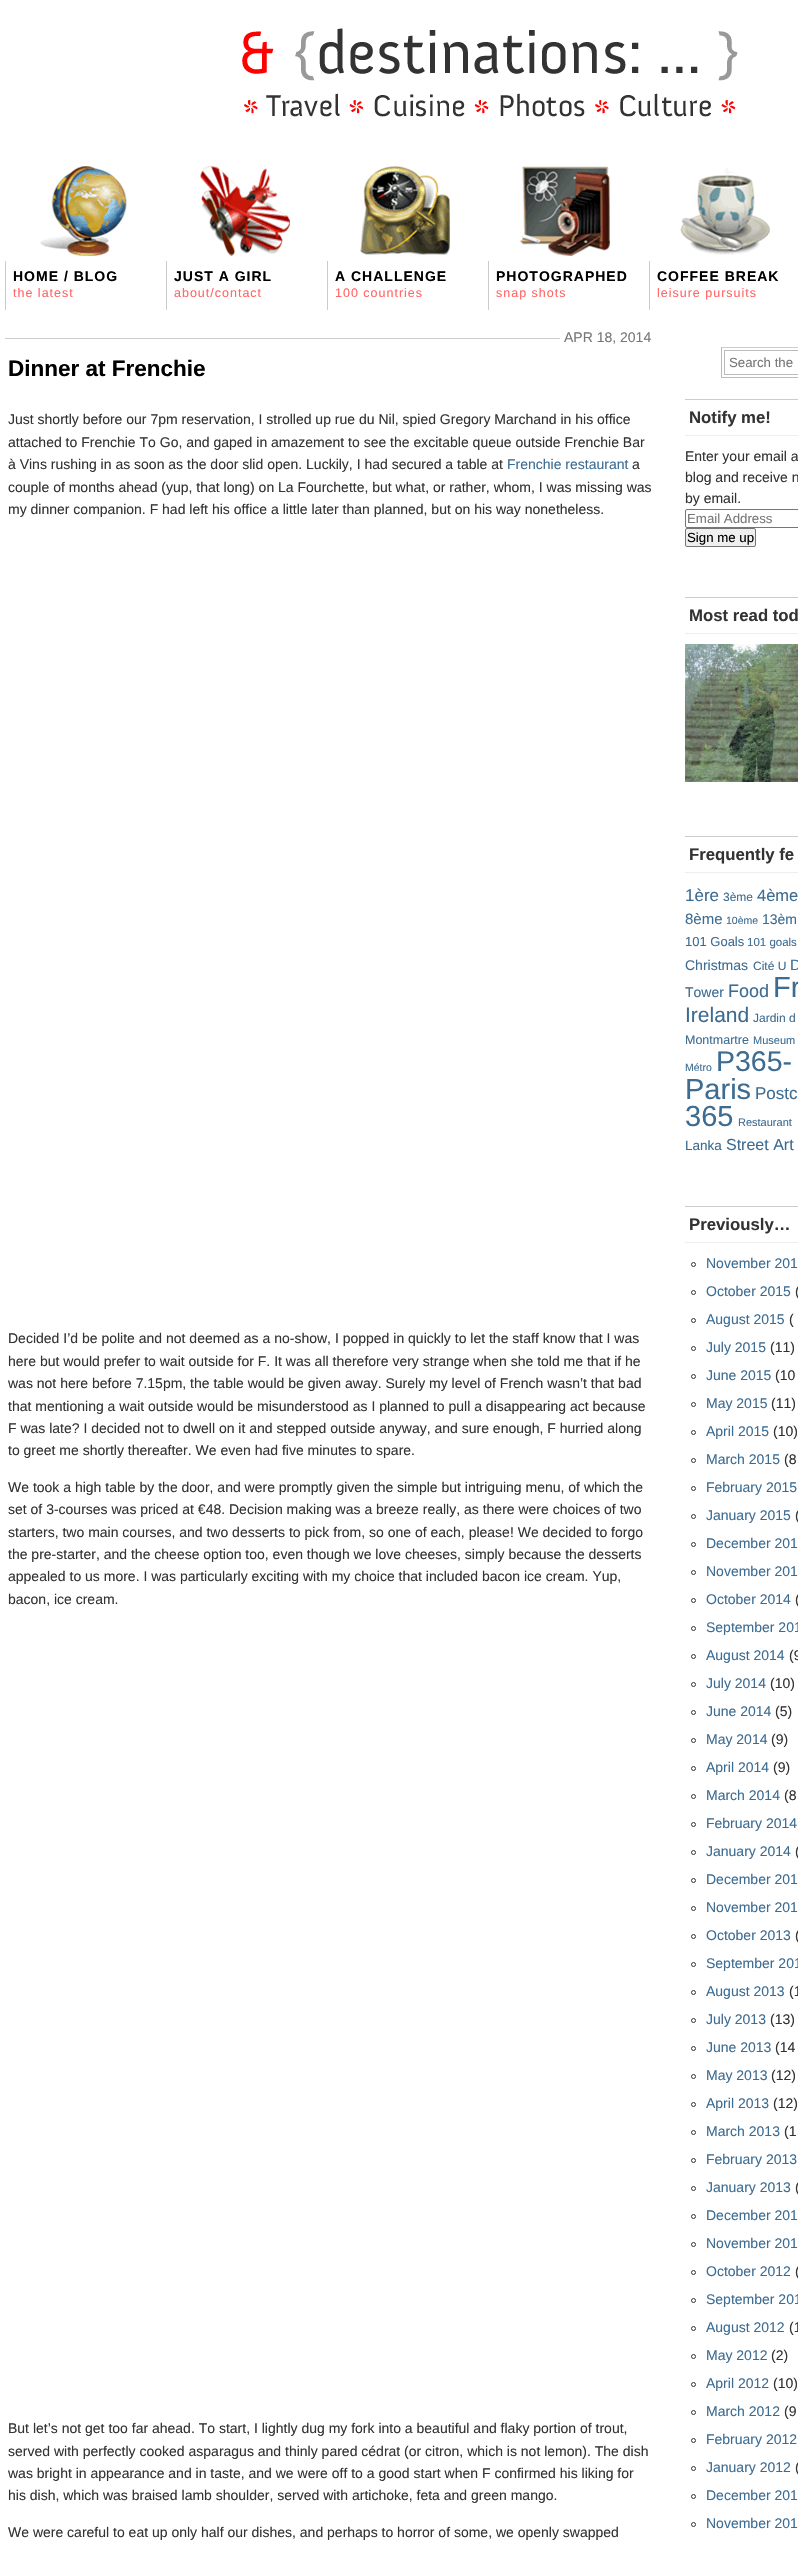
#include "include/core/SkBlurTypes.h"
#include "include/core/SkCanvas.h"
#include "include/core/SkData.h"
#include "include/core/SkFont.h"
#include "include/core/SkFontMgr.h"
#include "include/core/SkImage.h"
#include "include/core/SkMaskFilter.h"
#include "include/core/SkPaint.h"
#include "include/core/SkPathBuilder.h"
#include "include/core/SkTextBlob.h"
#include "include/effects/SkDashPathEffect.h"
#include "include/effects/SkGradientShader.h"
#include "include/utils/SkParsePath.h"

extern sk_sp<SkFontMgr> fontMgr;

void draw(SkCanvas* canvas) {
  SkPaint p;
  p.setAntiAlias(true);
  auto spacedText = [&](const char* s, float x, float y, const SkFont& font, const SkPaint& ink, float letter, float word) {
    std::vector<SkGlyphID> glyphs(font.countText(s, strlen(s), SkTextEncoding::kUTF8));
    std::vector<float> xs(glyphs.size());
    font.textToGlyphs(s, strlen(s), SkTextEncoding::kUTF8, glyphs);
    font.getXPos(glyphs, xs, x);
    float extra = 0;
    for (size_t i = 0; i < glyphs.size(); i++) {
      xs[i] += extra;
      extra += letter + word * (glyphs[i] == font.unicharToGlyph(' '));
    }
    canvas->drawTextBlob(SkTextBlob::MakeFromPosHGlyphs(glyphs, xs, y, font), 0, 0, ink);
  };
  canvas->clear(SK_ColorWHITE);
  canvas->drawImageRect(SkImages::DeferredFromEncodedData(SkData::MakeFromFileName("images/1.png")), SkRect::MakeLTRB(242, 28, 738, 117), SkSamplingOptions());
  canvas->drawImageRect(SkImages::DeferredFromEncodedData(SkData::MakeFromFileName("images/2.png")), SkRect::MakeLTRB(40, 166, 770, 256), SkSamplingOptions());
  p.setColor(SkColorSetRGB(204, 204, 204));
  canvas->drawRect(SkRect::MakeLTRB(5, 261, 6, 310), p);
  canvas->drawRect(SkRect::MakeLTRB(166, 261, 167, 310), p);
  canvas->drawRect(SkRect::MakeLTRB(327, 261, 328, 310), p);
  canvas->drawRect(SkRect::MakeLTRB(488, 261, 489, 310), p);
  canvas->drawRect(SkRect::MakeLTRB(649, 261, 650, 310), p);
  canvas->drawRect(SkRect::MakeLTRB(5, 338, 560, 339), p);
  canvas->drawRect(SkRect::MakeLTRB(721, 347, 798, 348), p);
  p.setColor(SkColorSetRGB(187, 187, 187));
  canvas->drawRect(SkRect::MakeLTRB(721, 377, 798, 378), p);
  canvas->drawRect(SkRect::MakeLTRB(721, 347, 722, 378), p);
  p.setStyle(SkPaint::kStroke_Style);
  p.setStrokeWidth(1);
  canvas->drawRect(SkRect::MakeLTRB(724.5f, 350.5f, 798.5f, 374.5f), p);
  p.setStyle(SkPaint::kFill_Style);
  p.setColor(SkColorSetRGB(204, 204, 204));
  canvas->drawRect(SkRect::MakeLTRB(685, 399, 798, 400), p);
  p.setColor(SkColorSetRGB(238, 238, 238));
  canvas->drawRect(SkRect::MakeLTRB(685, 435, 798, 436), p);
  p.setStyle(SkPaint::kStroke_Style);
  p.setColor(SkColorSetRGB(118, 118, 118));
  canvas->drawRoundRect(SkRect::MakeLTRB(685.5f, 509.5f, 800.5f, 527.5f), 1.5f, 1.5f, p);
  p.setStyle(SkPaint::kFill_Style);
  p.setColor(SkColorSetRGB(239, 239, 239));
  canvas->drawRoundRect(SkRect::MakeLTRB(685.5f, 528.5f, 755.5f, 546.5f), 1.5f, 1.5f, p);
  p.setStyle(SkPaint::kStroke_Style);
  p.setColor(SkColorSetRGB(118, 118, 118));
  canvas->drawRoundRect(SkRect::MakeLTRB(685.5f, 528.5f, 755.5f, 546.5f), 1.5f, 1.5f, p);
  p.setStyle(SkPaint::kFill_Style);
  p.setColor(SkColorSetRGB(204, 204, 204));
  canvas->drawRect(SkRect::MakeLTRB(685, 597, 798, 598), p);
  p.setColor(SkColorSetRGB(238, 238, 238));
  canvas->drawRect(SkRect::MakeLTRB(685, 633, 798, 634), p);
  canvas->drawImageRect(SkImages::DeferredFromEncodedData(SkData::MakeFromFileName("images/3.png")), SkRect::MakeLTRB(685, 644, 798, 782), SkSamplingOptions());
  p.setColor(SkColorSetRGB(204, 204, 204));
  canvas->drawRect(SkRect::MakeLTRB(685, 836, 798, 837), p);
  p.setColor(SkColorSetRGB(238, 238, 238));
  canvas->drawRect(SkRect::MakeLTRB(685, 872, 798, 873), p);
  p.setColor(SkColorSetRGB(204, 204, 204));
  canvas->drawRect(SkRect::MakeLTRB(685, 1206, 798, 1207), p);
  p.setColor(SkColorSetRGB(238, 238, 238));
  canvas->drawRect(SkRect::MakeLTRB(685, 1242, 798, 1243), p);
  p.setStyle(SkPaint::kStroke_Style);
  p.setColor(SkColorSetRGB(51, 51, 51));
  canvas->drawCircle(693.5f, 1264.5f, 2, p);
  canvas->drawCircle(693.5f, 1292.5f, 2, p);
  canvas->drawCircle(693.5f, 1320.5f, 2, p);
  canvas->drawCircle(693.5f, 1348.5f, 2, p);
  canvas->drawCircle(693.5f, 1376.5f, 2, p);
  canvas->drawCircle(693.5f, 1404.5f, 2, p);
  canvas->drawCircle(693.5f, 1432.5f, 2, p);
  canvas->drawCircle(693.5f, 1460.5f, 2, p);
  canvas->drawCircle(693.5f, 1488.5f, 2, p);
  canvas->drawCircle(693.5f, 1516.5f, 2, p);
  canvas->drawCircle(693.5f, 1544.5f, 2, p);
  canvas->drawCircle(693.5f, 1572.5f, 2, p);
  canvas->drawCircle(693.5f, 1600.5f, 2, p);
  canvas->drawCircle(693.5f, 1628.5f, 2, p);
  canvas->drawCircle(693.5f, 1656.5f, 2, p);
  canvas->drawCircle(693.5f, 1684.5f, 2, p);
  canvas->drawCircle(693.5f, 1712.5f, 2, p);
  canvas->drawCircle(693.5f, 1740.5f, 2, p);
  canvas->drawCircle(693.5f, 1768.5f, 2, p);
  canvas->drawCircle(693.5f, 1796.5f, 2, p);
  canvas->drawCircle(693.5f, 1824.5f, 2, p);
  canvas->drawCircle(693.5f, 1852.5f, 2, p);
  canvas->drawCircle(693.5f, 1880.5f, 2, p);
  canvas->drawCircle(693.5f, 1908.5f, 2, p);
  canvas->drawCircle(693.5f, 1936.5f, 2, p);
  canvas->drawCircle(693.5f, 1964.5f, 2, p);
  canvas->drawCircle(693.5f, 1992.5f, 2, p);
  canvas->drawCircle(693.5f, 2020.5f, 2, p);
  canvas->drawCircle(693.5f, 2048.5f, 2, p);
  canvas->drawCircle(693.5f, 2076.5f, 2, p);
  canvas->drawCircle(693.5f, 2104.5f, 2, p);
  canvas->drawCircle(693.5f, 2132.5f, 2, p);
  canvas->drawCircle(693.5f, 2160.5f, 2, p);
  canvas->drawCircle(693.5f, 2188.5f, 2, p);
  canvas->drawCircle(693.5f, 2216.5f, 2, p);
  canvas->drawCircle(693.5f, 2244.5f, 2, p);
  canvas->drawCircle(693.5f, 2272.5f, 2, p);
  canvas->drawCircle(693.5f, 2300.5f, 2, p);
  canvas->drawCircle(693.5f, 2328.5f, 2, p);
  canvas->drawCircle(693.5f, 2356.5f, 2, p);
  canvas->drawCircle(693.5f, 2384.5f, 2, p);
  canvas->drawCircle(693.5f, 2412.5f, 2, p);
  canvas->drawCircle(693.5f, 2440.5f, 2, p);
  canvas->drawCircle(693.5f, 2468.5f, 2, p);
  canvas->drawCircle(693.5f, 2496.5f, 2, p);
  canvas->drawCircle(693.5f, 2524.5f, 2, p);
  SkFont font1(fontMgr->matchFamilyStyle("Liberation Sans", SkFontStyle::Bold()), 14);
  font1.setSubpixel(true);
  p.setStyle(SkPaint::kFill_Style);
  p.setColor(SK_ColorBLACK);
  spacedText("HOME / BLOG", 13, 281, font1, p, 1, 0);
  SkFont font2(fontMgr->matchFamilyStyle("Liberation Sans", SkFontStyle::Normal()), 12.5f);
  font2.setSubpixel(true);
  p.setColor(SkColorSetRGB(255, 102, 102));
  spacedText("the latest", 13, 297, font2, p, 1, 0);
  p.setColor(SK_ColorBLACK);
  spacedText("JUST A GIRL", 174, 281, font1, p, 1, 0);
  p.setColor(SkColorSetRGB(255, 102, 102));
  spacedText("about/contact", 174, 297, font2, p, 1, 0);
  p.setColor(SK_ColorBLACK);
  spacedText("A CHALLENGE", 335, 281, font1, p, 1, 0);
  p.setColor(SkColorSetRGB(255, 102, 102));
  spacedText("100 countries", 335, 297, font2, p, 1, 0);
  p.setColor(SK_ColorBLACK);
  spacedText("PHOTOGRAPHED", 496, 281, font1, p, 1, 0);
  p.setColor(SkColorSetRGB(255, 102, 102));
  spacedText("snap shots", 496, 297, font2, p, 1, 0);
  p.setColor(SK_ColorBLACK);
  spacedText("COFFEE BREAK", 657, 281, font1, p, 1, 0);
  p.setColor(SkColorSetRGB(255, 102, 102));
  spacedText("leisure pursuits", 657, 297, font2, p, 1, 0);
  SkFont font3(fontMgr->matchFamilyStyle("Liberation Sans", SkFontStyle::Normal()), 14);
  font3.setSubpixel(true);
  p.setColor(SkColorSetRGB(119, 119, 119));
  canvas->drawString("APR 18, 2014", 564, 342, font3, p);
  SkFont font4(fontMgr->matchFamilyStyle("Liberation Sans", SkFontStyle::Bold()), 22.5f);
  font4.setSubpixel(true);
  p.setColor(SK_ColorBLACK);
  canvas->drawString("Dinner at Frenchie", 8, 376, font4, p);
  p.setColor(SkColorSetRGB(51, 51, 51));
  canvas->drawString("Just shortly before our 7pm reservation, I strolled up rue du Nil, spied Gregory Marchand in his office", 8, 424, font3, p);
  canvas->drawString("attached to Frenchie To Go, and gaped in amazement to see the excitable queue outside Frenchie Bar", 8, 447, font3, p);
  canvas->drawString("à Vins rushing in as soon as the door slid open. Luckily, I had secured a table at", 8, 469, font3, p);
  p.setColor(SkColorSetRGB(60, 108, 146));
  canvas->drawString("Frenchie restaurant", 507, 469, font3, p);
  p.setColor(SkColorSetRGB(51, 51, 51));
  canvas->drawString("a", 632, 469, font3, p);
  canvas->drawString("couple of months ahead (yup, that long) on La Fourchette, but what, or rather, whom, I was missing was", 8, 492, font3, p);
  canvas->drawString("my dinner companion. F had left his office a little later than planned, but on his way nonetheless.", 8, 514, font3, p);
  canvas->drawString("Decided I’d be polite and not deemed as a no-show, I popped in quickly to let the staff know that I was", 8, 1343, font3, p);
  canvas->drawString("here but would prefer to wait outside for F. It was all therefore very strange when she told me that if he", 8, 1366, font3, p);
  canvas->drawString("was not here before 7.15pm, the table would be given away. Surely my level of French wasn’t that bad", 8, 1388, font3, p);
  canvas->drawString("that mentioning a wait outside would be misunderstood as I planned to pull a disappearing act because", 8, 1411, font3, p);
  canvas->drawString("F was late? I decided not to dwell on it and stepped outside anyway, and sure enough, F hurried along", 8, 1433, font3, p);
  canvas->drawString("to greet me shortly thereafter. We even had five minutes to spare.", 8, 1455, font3, p);
  canvas->drawString("We took a high table by the door, and were promptly given the simple but intriguing menu, of which the", 8, 1492, font3, p);
  canvas->drawString("set of 3-courses was priced at €48. Decision making was a breeze really, as there were choices of two", 8, 1514, font3, p);
  canvas->drawString("starters, two main courses, and two desserts to pick from, so one of each, please! We decided to forgo", 8, 1537, font3, p);
  canvas->drawString("the pre-starter, and the cheese option too, even though we love cheeses, simply because the desserts", 8, 1559, font3, p);
  canvas->drawString("appealed to us more. I was particularly exciting with my choice that included bacon ice cream. Yup,", 8, 1581, font3, p);
  canvas->drawString("bacon, ice cream.", 8, 1604, font3, p);
  canvas->drawString("But let’s not get too far ahead. To start, I lightly dug my fork into a beautiful and flaky portion of trout,", 8, 2433, font3, p);
  canvas->drawString("served with perfectly cooked asparagus and thinly pared cédrat (or citron, which is not lemon). The dish", 8, 2456, font3, p);
  canvas->drawString("was bright in appearance and in taste, and we were off to a good start when F confirmed his liking for", 8, 2478, font3, p);
  canvas->drawString("his dish, which was braised lamb shoulder, served with artichoke, feta and green mango.", 8, 2500, font3, p);
  canvas->drawString("We were careful to eat up only half our dishes, and perhaps to horror of some, we openly swapped", 8, 2537, font3, p);
  SkFont font5(fontMgr->matchFamilyStyle("Liberation Sans", SkFontStyle::Normal()), 13.25f);
  font5.setSubpixel(true);
  p.setColor(SkColorSetRGB(119, 119, 119));
  canvas->drawString("Search the", 729, 367, font5, p);
  SkFont font6(fontMgr->matchFamilyStyle("Liberation Sans", SkFontStyle::Bold()), 16.75f);
  font6.setSubpixel(true);
  p.setColor(SkColorSetRGB(51, 51, 51));
  canvas->drawString("Notify me!", 689, 423, font6, p);
  canvas->drawString("Enter your email a", 685, 461, font3, p);
  canvas->drawString("blog and receive n", 685, 482, font3, p);
  canvas->drawString("by email.", 685, 503, font3, p);
  p.setColor(SkColorSetRGB(119, 119, 119));
  canvas->drawString("Email Address", 687, 523, font5, p);
  p.setColor(SK_ColorBLACK);
  canvas->drawString("Sign me up", 687, 542, font5, p);
  p.setColor(SkColorSetRGB(51, 51, 51));
  canvas->drawString("Most read tod", 689, 621, font6, p);
  canvas->drawString("Frequently fe", 689, 860, font6, p);
  SkFont font7(fontMgr->matchFamilyStyle("Liberation Sans", SkFontStyle::Normal()), 17);
  font7.setSubpixel(true);
  p.setColor(SkColorSetRGB(60, 108, 146));
  canvas->drawString("1ère", 685, 901, font7, p);
  SkFont font8(fontMgr->matchFamilyStyle("Liberation Sans", SkFontStyle::Normal()), 12);
  font8.setSubpixel(true);
  canvas->drawString("3ème", 723, 901, font8, p);
  SkFont font9(fontMgr->matchFamilyStyle("Liberation Sans", SkFontStyle::Normal()), 16.5f);
  font9.setSubpixel(true);
  canvas->drawString("4ème", 757, 901, font9, p);
  SkFont font10(fontMgr->matchFamilyStyle("Liberation Sans", SkFontStyle::Normal()), 15);
  font10.setSubpixel(true);
  canvas->drawString("8ème", 685, 924, font10, p);
  SkFont font11(fontMgr->matchFamilyStyle("Liberation Sans", SkFontStyle::Normal()), 10.5f);
  font11.setSubpixel(true);
  canvas->drawString("10ème", 726, 924, font11, p);
  canvas->drawString("13èm", 762, 924, font3, p);
  SkFont font12(fontMgr->matchFamilyStyle("Liberation Sans", SkFontStyle::Normal()), 13);
  font12.setSubpixel(true);
  canvas->drawString("101 Goals", 685, 946, font12, p);
  SkFont font13(fontMgr->matchFamilyStyle("Liberation Sans", SkFontStyle::Normal()), 11.5f);
  font13.setSubpixel(true);
  canvas->drawString("101 goals", 747, 946, font13, p);
  canvas->drawString("Christmas", 685, 970, font3, p);
  canvas->drawString("Cité U", 753, 970, font8, p);
  canvas->drawString("D", 790, 970, font10, p);
  canvas->drawString("Tower", 685, 997, font3, p);
  SkFont font14(fontMgr->matchFamilyStyle("Liberation Sans", SkFontStyle::Normal()), 18);
  font14.setSubpixel(true);
  canvas->drawString("Food", 728, 997, font14, p);
  SkFont font15(fontMgr->matchFamilyStyle("Liberation Sans", SkFontStyle::Normal()), 29);
  font15.setSubpixel(true);
  canvas->drawString("Fr", 773, 997, font15, p);
  SkFont font16(fontMgr->matchFamilyStyle("Liberation Sans", SkFontStyle::Normal()), 21);
  font16.setSubpixel(true);
  canvas->drawString("Ireland", 685, 1022, font16, p);
  canvas->drawString("Jardin d", 753, 1022, font8, p);
  canvas->drawString("Montmartre", 685, 1044, font2, p);
  SkFont font17(fontMgr->matchFamilyStyle("Liberation Sans", SkFontStyle::Normal()), 11);
  font17.setSubpixel(true);
  canvas->drawString("Museum", 753, 1044, font17, p);
  canvas->drawString("Métro", 685, 1071, font11, p);
  SkFont font18(fontMgr->matchFamilyStyle("Liberation Sans", SkFontStyle::Normal()), 28.5f);
  font18.setSubpixel(true);
  canvas->drawString("P365-", 716, 1071, font18, p);
  canvas->drawString("Paris", 685, 1099, font15, p);
  canvas->drawString("Postc", 755, 1099, font7, p);
  canvas->drawString("365", 685, 1126, font15, p);
  canvas->drawString("Restaurant", 738, 1126, font17, p);
  SkFont font19(fontMgr->matchFamilyStyle("Liberation Sans", SkFontStyle::Normal()), 13.5f);
  font19.setSubpixel(true);
  canvas->drawString("Lanka", 685, 1150, font19, p);
  SkFont font20(fontMgr->matchFamilyStyle("Liberation Sans", SkFontStyle::Normal()), 16);
  font20.setSubpixel(true);
  canvas->drawString("Street Art", 726, 1150, font20, p);
  p.setColor(SkColorSetRGB(51, 51, 51));
  canvas->drawString("Previously…", 689, 1230, font6, p);
  p.setColor(SkColorSetRGB(60, 108, 146));
  canvas->drawString("November 201", 706, 1268, font3, p);
  canvas->drawString("October 2015", 706, 1296, font3, p);
  p.setColor(SkColorSetRGB(51, 51, 51));
  canvas->drawString("(", 795, 1296, font3, p);
  p.setColor(SkColorSetRGB(60, 108, 146));
  canvas->drawString("August 2015", 706, 1324, font3, p);
  p.setColor(SkColorSetRGB(51, 51, 51));
  canvas->drawString("(", 789, 1324, font3, p);
  p.setColor(SkColorSetRGB(60, 108, 146));
  canvas->drawString("July 2015", 706, 1352, font3, p);
  p.setColor(SkColorSetRGB(51, 51, 51));
  canvas->drawString("(11)", 770, 1352, font3, p);
  p.setColor(SkColorSetRGB(60, 108, 146));
  canvas->drawString("June 2015", 706, 1380, font3, p);
  p.setColor(SkColorSetRGB(51, 51, 51));
  canvas->drawString("(10", 775, 1380, font3, p);
  p.setColor(SkColorSetRGB(60, 108, 146));
  canvas->drawString("May 2015", 706, 1408, font3, p);
  p.setColor(SkColorSetRGB(51, 51, 51));
  canvas->drawString("(11)", 771, 1408, font3, p);
  p.setColor(SkColorSetRGB(60, 108, 146));
  canvas->drawString("April 2015", 706, 1436, font3, p);
  p.setColor(SkColorSetRGB(51, 51, 51));
  canvas->drawString("(10)", 773, 1436, font3, p);
  p.setColor(SkColorSetRGB(60, 108, 146));
  canvas->drawString("March 2015", 706, 1464, font3, p);
  p.setColor(SkColorSetRGB(51, 51, 51));
  canvas->drawString("(8", 784, 1464, font3, p);
  p.setColor(SkColorSetRGB(60, 108, 146));
  canvas->drawString("February 2015", 706, 1492, font3, p);
  canvas->drawString("January 2015", 706, 1520, font3, p);
  p.setColor(SkColorSetRGB(51, 51, 51));
  canvas->drawString("(", 795, 1520, font3, p);
  p.setColor(SkColorSetRGB(60, 108, 146));
  canvas->drawString("December 201", 706, 1548, font3, p);
  canvas->drawString("November 201", 706, 1576, font3, p);
  canvas->drawString("October 2014", 706, 1604, font3, p);
  p.setColor(SkColorSetRGB(51, 51, 51));
  canvas->drawString("(", 795, 1604, font3, p);
  p.setColor(SkColorSetRGB(60, 108, 146));
  canvas->drawString("September 201", 706, 1632, font3, p);
  canvas->drawString("August 2014", 706, 1660, font3, p);
  p.setColor(SkColorSetRGB(51, 51, 51));
  canvas->drawString("(9", 789, 1660, font3, p);
  p.setColor(SkColorSetRGB(60, 108, 146));
  canvas->drawString("July 2014", 706, 1688, font3, p);
  p.setColor(SkColorSetRGB(51, 51, 51));
  canvas->drawString("(10)", 770, 1688, font3, p);
  p.setColor(SkColorSetRGB(60, 108, 146));
  canvas->drawString("June 2014", 706, 1716, font3, p);
  p.setColor(SkColorSetRGB(51, 51, 51));
  canvas->drawString("(5)", 775, 1716, font3, p);
  p.setColor(SkColorSetRGB(60, 108, 146));
  canvas->drawString("May 2014", 706, 1744, font3, p);
  p.setColor(SkColorSetRGB(51, 51, 51));
  canvas->drawString("(9)", 771, 1744, font3, p);
  p.setColor(SkColorSetRGB(60, 108, 146));
  canvas->drawString("April 2014", 706, 1772, font3, p);
  p.setColor(SkColorSetRGB(51, 51, 51));
  canvas->drawString("(9)", 773, 1772, font3, p);
  p.setColor(SkColorSetRGB(60, 108, 146));
  canvas->drawString("March 2014", 706, 1800, font3, p);
  p.setColor(SkColorSetRGB(51, 51, 51));
  canvas->drawString("(8", 784, 1800, font3, p);
  p.setColor(SkColorSetRGB(60, 108, 146));
  canvas->drawString("February 2014", 706, 1828, font3, p);
  canvas->drawString("January 2014", 706, 1856, font3, p);
  p.setColor(SkColorSetRGB(51, 51, 51));
  canvas->drawString("(", 795, 1856, font3, p);
  p.setColor(SkColorSetRGB(60, 108, 146));
  canvas->drawString("December 201", 706, 1884, font3, p);
  canvas->drawString("November 201", 706, 1912, font3, p);
  canvas->drawString("October 2013", 706, 1940, font3, p);
  p.setColor(SkColorSetRGB(51, 51, 51));
  canvas->drawString("(", 795, 1940, font3, p);
  p.setColor(SkColorSetRGB(60, 108, 146));
  canvas->drawString("September 201", 706, 1968, font3, p);
  canvas->drawString("August 2013", 706, 1996, font3, p);
  p.setColor(SkColorSetRGB(51, 51, 51));
  canvas->drawString("(1", 789, 1996, font3, p);
  p.setColor(SkColorSetRGB(60, 108, 146));
  canvas->drawString("July 2013", 706, 2024, font3, p);
  p.setColor(SkColorSetRGB(51, 51, 51));
  canvas->drawString("(13)", 770, 2024, font3, p);
  p.setColor(SkColorSetRGB(60, 108, 146));
  canvas->drawString("June 2013", 706, 2052, font3, p);
  p.setColor(SkColorSetRGB(51, 51, 51));
  canvas->drawString("(14", 775, 2052, font3, p);
  p.setColor(SkColorSetRGB(60, 108, 146));
  canvas->drawString("May 2013", 706, 2080, font3, p);
  p.setColor(SkColorSetRGB(51, 51, 51));
  canvas->drawString("(12)", 771, 2080, font3, p);
  p.setColor(SkColorSetRGB(60, 108, 146));
  canvas->drawString("April 2013", 706, 2108, font3, p);
  p.setColor(SkColorSetRGB(51, 51, 51));
  canvas->drawString("(12)", 773, 2108, font3, p);
  p.setColor(SkColorSetRGB(60, 108, 146));
  canvas->drawString("March 2013", 706, 2136, font3, p);
  p.setColor(SkColorSetRGB(51, 51, 51));
  canvas->drawString("(1", 784, 2136, font3, p);
  p.setColor(SkColorSetRGB(60, 108, 146));
  canvas->drawString("February 2013", 706, 2164, font3, p);
  canvas->drawString("January 2013", 706, 2192, font3, p);
  p.setColor(SkColorSetRGB(51, 51, 51));
  canvas->drawString("(", 795, 2192, font3, p);
  p.setColor(SkColorSetRGB(60, 108, 146));
  canvas->drawString("December 201", 706, 2220, font3, p);
  canvas->drawString("November 201", 706, 2248, font3, p);
  canvas->drawString("October 2012", 706, 2276, font3, p);
  p.setColor(SkColorSetRGB(51, 51, 51));
  canvas->drawString("(", 795, 2276, font3, p);
  p.setColor(SkColorSetRGB(60, 108, 146));
  canvas->drawString("September 201", 706, 2304, font3, p);
  canvas->drawString("August 2012", 706, 2332, font3, p);
  p.setColor(SkColorSetRGB(51, 51, 51));
  canvas->drawString("(1", 789, 2332, font3, p);
  p.setColor(SkColorSetRGB(60, 108, 146));
  canvas->drawString("May 2012", 706, 2360, font3, p);
  p.setColor(SkColorSetRGB(51, 51, 51));
  canvas->drawString("(2)", 771, 2360, font3, p);
  p.setColor(SkColorSetRGB(60, 108, 146));
  canvas->drawString("April 2012", 706, 2388, font3, p);
  p.setColor(SkColorSetRGB(51, 51, 51));
  canvas->drawString("(10)", 773, 2388, font3, p);
  p.setColor(SkColorSetRGB(60, 108, 146));
  canvas->drawString("March 2012", 706, 2416, font3, p);
  p.setColor(SkColorSetRGB(51, 51, 51));
  canvas->drawString("(9", 784, 2416, font3, p);
  p.setColor(SkColorSetRGB(60, 108, 146));
  canvas->drawString("February 2012", 706, 2444, font3, p);
  canvas->drawString("January 2012", 706, 2472, font3, p);
  p.setColor(SkColorSetRGB(51, 51, 51));
  canvas->drawString("(", 795, 2472, font3, p);
  p.setColor(SkColorSetRGB(60, 108, 146));
  canvas->drawString("December 201", 706, 2500, font3, p);
  canvas->drawString("November 201", 706, 2528, font3, p);
}
